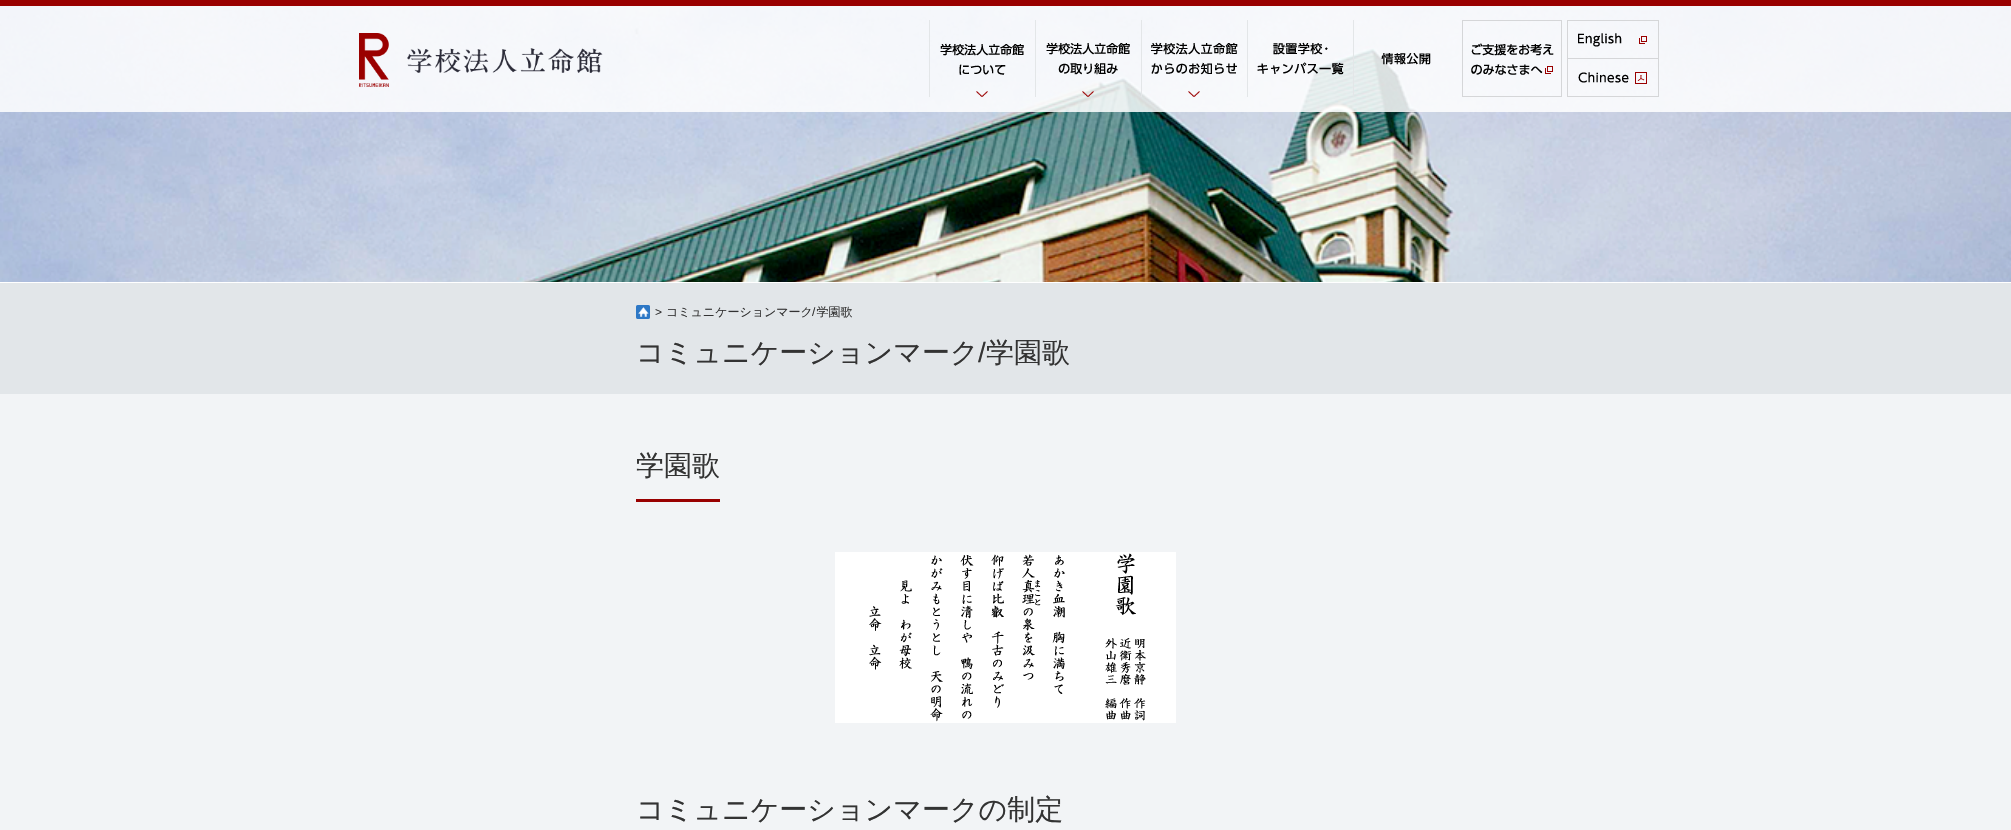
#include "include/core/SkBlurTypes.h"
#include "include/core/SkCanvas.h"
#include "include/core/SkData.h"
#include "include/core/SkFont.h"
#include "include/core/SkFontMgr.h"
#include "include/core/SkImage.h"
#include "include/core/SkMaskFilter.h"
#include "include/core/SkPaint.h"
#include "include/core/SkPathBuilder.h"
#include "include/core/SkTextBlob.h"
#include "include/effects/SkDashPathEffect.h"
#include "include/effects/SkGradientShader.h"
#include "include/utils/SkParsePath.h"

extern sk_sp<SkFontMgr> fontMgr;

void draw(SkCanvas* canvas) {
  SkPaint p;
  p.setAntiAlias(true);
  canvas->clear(SkColorSetRGB(242, 244, 246));
  p.setColor(SkColorSetRGB(153, 0, 0));
  canvas->drawRect(SkRect::MakeLTRB(0, 0, 2011, 6), p);
  canvas->drawImageRect(SkImages::DeferredFromEncodedData(SkData::MakeFromFileName("images/16.png")), SkRect::MakeLTRB(0, 6, 2011, 282), SkSamplingOptions());
  p.setColor(SkColorSetARGB(217, 255, 255, 255));
  canvas->drawRect(SkRect::MakeLTRB(0, 6, 2011, 112), p);
  canvas->drawImageRect(SkImages::DeferredFromEncodedData(SkData::MakeFromFileName("images/1.png")), SkRect::MakeLTRB(359, 33, 603, 87), SkSamplingOptions());
  p.setColor(SkColorSetRGB(227, 230, 232));
  canvas->drawRect(SkRect::MakeLTRB(929, 20, 930, 97), p);
  canvas->drawImageRect(SkImages::DeferredFromEncodedData(SkData::MakeFromFileName("images/2.png")), SkRect::MakeLTRB(940, 43, 1024, 75), SkSamplingOptions());
  canvas->drawImageRect(SkImages::DeferredFromEncodedData(SkData::MakeFromFileName("images/3.png")), SkRect::MakeLTRB(976, 91, 988, 97), SkSamplingOptions());
  canvas->drawRect(SkRect::MakeLTRB(1035, 20, 1036, 97), p);
  canvas->drawImageRect(SkImages::DeferredFromEncodedData(SkData::MakeFromFileName("images/4.png")), SkRect::MakeLTRB(1046, 42, 1130, 75), SkSamplingOptions());
  canvas->drawImageRect(SkImages::DeferredFromEncodedData(SkData::MakeFromFileName("images/5.png")), SkRect::MakeLTRB(1082, 91, 1094, 97), SkSamplingOptions());
  canvas->drawRect(SkRect::MakeLTRB(1141, 20, 1142, 97), p);
  canvas->drawImageRect(SkImages::DeferredFromEncodedData(SkData::MakeFromFileName("images/6.png")), SkRect::MakeLTRB(1151, 42, 1238, 75), SkSamplingOptions());
  canvas->drawImageRect(SkImages::DeferredFromEncodedData(SkData::MakeFromFileName("images/7.png")), SkRect::MakeLTRB(1188, 91, 1200, 97), SkSamplingOptions());
  canvas->drawRect(SkRect::MakeLTRB(1247, 20, 1248, 97), p);
  canvas->drawImageRect(SkImages::DeferredFromEncodedData(SkData::MakeFromFileName("images/8.png")), SkRect::MakeLTRB(1257, 42, 1344, 75), SkSamplingOptions());
  canvas->drawRect(SkRect::MakeLTRB(1353, 20, 1354, 97), p);
  canvas->drawImageRect(SkImages::DeferredFromEncodedData(SkData::MakeFromFileName("images/9.png")), SkRect::MakeLTRB(1381, 53, 1431, 65), SkSamplingOptions());
  p.setStyle(SkPaint::kStroke_Style);
  p.setStrokeWidth(1);
  p.setColor(SkColorSetRGB(213, 214, 216));
  canvas->drawRect(SkRect::MakeLTRB(1462.5f, 20.5f, 1561.5f, 96.5f), p);
  canvas->drawImageRect(SkImages::DeferredFromEncodedData(SkData::MakeFromFileName("images/10.png")), SkRect::MakeLTRB(1471, 43, 1554, 75), SkSamplingOptions());
  canvas->drawImageRect(SkImages::DeferredFromEncodedData(SkData::MakeFromFileName("images/11.png")), SkRect::MakeLTRB(1545, 66, 1553, 74), SkSamplingOptions());
  canvas->drawRect(SkRect::MakeLTRB(1567.5f, 20.5f, 1658.5f, 58.5f), p);
  canvas->drawImageRect(SkImages::DeferredFromEncodedData(SkData::MakeFromFileName("images/12.png")), SkRect::MakeLTRB(1578, 33, 1622, 47), SkSamplingOptions());
  canvas->drawImageRect(SkImages::DeferredFromEncodedData(SkData::MakeFromFileName("images/13.png")), SkRect::MakeLTRB(1639, 36, 1647, 44), SkSamplingOptions());
  canvas->drawRect(SkRect::MakeLTRB(1567.5f, 58.5f, 1658.5f, 96.5f), p);
  canvas->drawImageRect(SkImages::DeferredFromEncodedData(SkData::MakeFromFileName("images/14.png")), SkRect::MakeLTRB(1578, 72, 1629, 83), SkSamplingOptions());
  canvas->drawImageRect(SkImages::DeferredFromEncodedData(SkData::MakeFromFileName("images/15.png")), SkRect::MakeLTRB(1635, 72, 1647, 84), SkSamplingOptions());
  p.setStyle(SkPaint::kFill_Style);
  p.setColor(SK_ColorWHITE);
  canvas->drawRect(SkRect::MakeLTRB(0, 282, 2011, 283), p);
  p.setColor(SkColorSetRGB(226, 230, 233));
  canvas->drawRect(SkRect::MakeLTRB(0, 283, 2011, 394), p);
  canvas->drawImageRect(SkImages::DeferredFromEncodedData(SkData::MakeFromFileName("images/17.png")), SkRect::MakeLTRB(636, 305, 650, 319), SkSamplingOptions());
  p.setColor(SkColorSetRGB(153, 0, 0));
  canvas->drawRect(SkRect::MakeLTRB(636, 499, 720, 502), p);
  canvas->drawImageRect(SkImages::DeferredFromEncodedData(SkData::MakeFromFileName("images/18.png")), SkRect::MakeLTRB(835, 552, 1176, 723), SkSamplingOptions());
  SkFont font1(fontMgr->matchFamilyStyle("WenQuanYi Zen Hei", SkFontStyle(500, SkFontStyle::kNormal_Width, SkFontStyle::kUpright_Slant)), 12);
  font1.setSubpixel(true);
  p.setColor(SkColorSetRGB(51, 51, 51));
  canvas->drawString("コミュニケーションマーク 学園歌", 666, 316, font1, p);
  SkFont font2(fontMgr->matchFamilyStyle("Liberation Sans", SkFontStyle::Normal()), 12);
  font2.setSubpixel(true);
  canvas->drawString(">", 655, 316, font2, p);
  canvas->drawString("/", 812, 316, font2, p);
  SkFont font3(fontMgr->matchFamilyStyle("WenQuanYi Zen Hei", SkFontStyle(500, SkFontStyle::kNormal_Width, SkFontStyle::kUpright_Slant)), 28);
  font3.setSubpixel(true);
  canvas->drawString("コミュニケーションマーク", 636, 362, font3, p);
  SkFont font4(fontMgr->matchFamilyStyle("Liberation Sans", SkFontStyle::Normal()), 28);
  font4.setSubpixel(true);
  canvas->drawString("/", 978, 362, font4, p);
  canvas->drawString("学園歌", 986, 362, font3, p);
  canvas->drawString("学園歌", 636, 475, font3, p);
  canvas->drawString("コミュニケーションマークの制定", 636, 819, font3, p);
}
